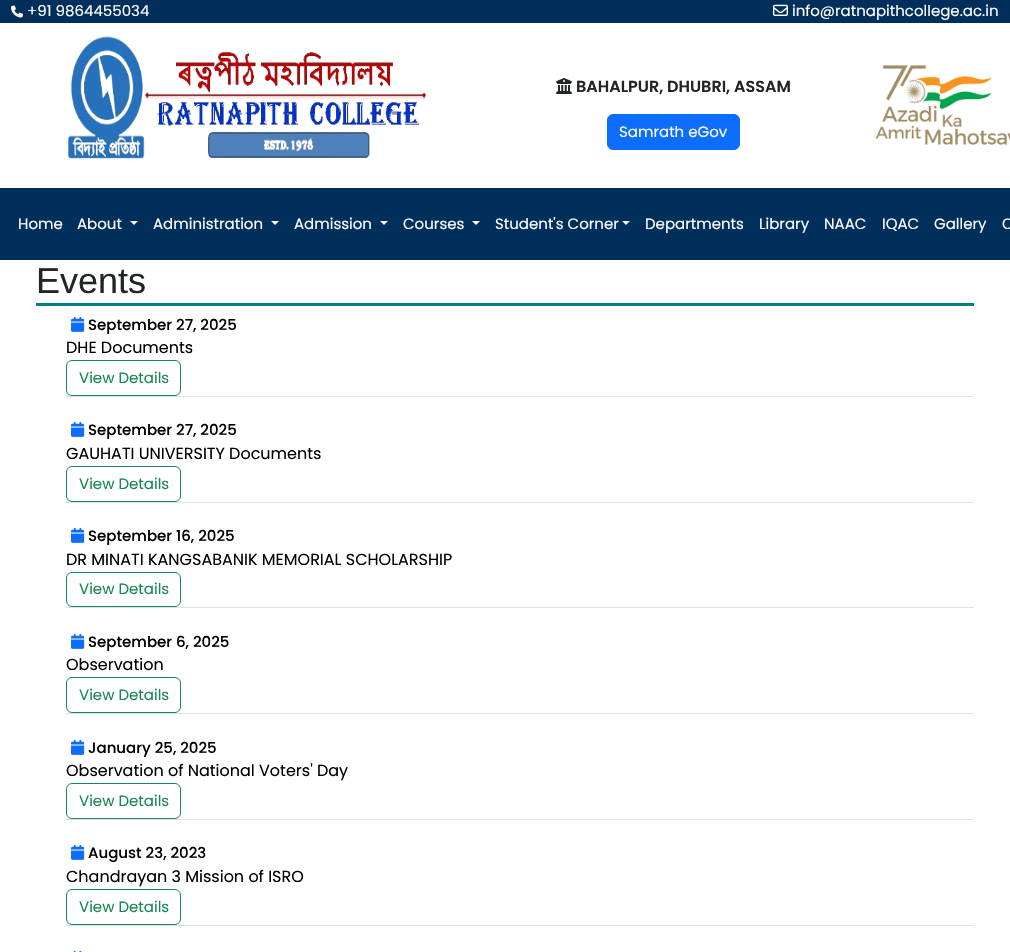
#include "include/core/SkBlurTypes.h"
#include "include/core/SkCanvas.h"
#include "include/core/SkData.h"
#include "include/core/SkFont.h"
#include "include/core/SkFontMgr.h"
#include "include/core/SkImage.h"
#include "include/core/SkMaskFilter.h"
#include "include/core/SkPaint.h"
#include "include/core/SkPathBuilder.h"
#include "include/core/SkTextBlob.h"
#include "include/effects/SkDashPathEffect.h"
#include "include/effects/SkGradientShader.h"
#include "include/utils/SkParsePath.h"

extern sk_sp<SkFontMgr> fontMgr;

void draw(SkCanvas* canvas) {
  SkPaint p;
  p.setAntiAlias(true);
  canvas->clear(SK_ColorWHITE);
  p.setColor(SkColorSetRGB(0, 47, 92));
  canvas->drawRect(SkRect::MakeLTRB(0, 0, 1010, 23), p);
  canvas->drawImageRect(SkImages::DeferredFromEncodedData(SkData::MakeFromFileName("images/1.png")), SkRect::MakeLTRB(11, 5, 23, 18), SkSamplingOptions());
  canvas->drawImageRect(SkImages::DeferredFromEncodedData(SkData::MakeFromFileName("images/2.png")), SkRect::MakeLTRB(773, 4, 788, 16), SkSamplingOptions());
  canvas->drawImageRect(SkImages::DeferredFromEncodedData(SkData::MakeFromFileName("images/3.png")), SkRect::MakeLTRB(67, 36, 426, 159), SkSamplingOptions());
  canvas->drawImageRect(SkImages::DeferredFromEncodedData(SkData::MakeFromFileName("images/4.png")), SkRect::MakeLTRB(556, 78, 572, 94), SkSamplingOptions());
  p.setColor(SkColorSetRGB(13, 110, 253));
  canvas->drawRoundRect(SkRect::MakeLTRB(607.5f, 114.5f, 739.5f, 149.5f), 5.5f, 5.5f, p);
  p.setStyle(SkPaint::kStroke_Style);
  p.setStrokeWidth(1);
  canvas->drawRoundRect(SkRect::MakeLTRB(607.5f, 114.5f, 739.5f, 149.5f), 5.5f, 5.5f, p);
  canvas->drawImageRect(SkImages::DeferredFromEncodedData(SkData::MakeFromFileName("images/5.png")), SkRect::MakeLTRB(875, 65, 1010, 145), SkSamplingOptions());
  p.setStyle(SkPaint::kFill_Style);
  p.setColor(SkColorSetRGB(0, 47, 92));
  canvas->drawRect(SkRect::MakeLTRB(0, 188, 1010, 260), p);
  p.setColor(SK_ColorWHITE);
  canvas->drawPath(SkPathBuilder().moveTo(130, 221).lineTo(138, 221).lineTo(134, 225).close().detach(), p);
  canvas->drawPath(SkPathBuilder().moveTo(271, 221).lineTo(279, 221).lineTo(275, 225).close().detach(), p);
  canvas->drawPath(SkPathBuilder().moveTo(380, 221).lineTo(388, 221).lineTo(384, 225).close().detach(), p);
  canvas->drawPath(SkPathBuilder().moveTo(472, 221).lineTo(480, 221).lineTo(476, 225).close().detach(), p);
  canvas->drawPath(SkPathBuilder().moveTo(622, 221).lineTo(630, 221).lineTo(626, 225).close().detach(), p);
  p.setColor(SkColorSetRGB(0, 128, 128));
  canvas->drawRect(SkRect::MakeLTRB(36, 303, 974, 306), p);
  canvas->drawImageRect(SkImages::DeferredFromEncodedData(SkData::MakeFromFileName("images/6.png")), SkRect::MakeLTRB(71, 316, 85, 332), SkSamplingOptions());
  p.setColor(SkColorSetRGB(222, 226, 230));
  canvas->drawRect(SkRect::MakeLTRB(66, 396, 974, 397), p);
  p.setStyle(SkPaint::kStroke_Style);
  p.setColor(SkColorSetRGB(25, 135, 84));
  canvas->drawRoundRect(SkRect::MakeLTRB(66.5f, 360.5f, 180.5f, 395.5f), 5.5f, 5.5f, p);
  canvas->drawImageRect(SkImages::DeferredFromEncodedData(SkData::MakeFromFileName("images/6.png")), SkRect::MakeLTRB(71, 421, 85, 437), SkSamplingOptions());
  p.setStyle(SkPaint::kFill_Style);
  p.setColor(SkColorSetRGB(222, 226, 230));
  canvas->drawRect(SkRect::MakeLTRB(66, 502, 974, 503), p);
  p.setStyle(SkPaint::kStroke_Style);
  p.setColor(SkColorSetRGB(25, 135, 84));
  canvas->drawRoundRect(SkRect::MakeLTRB(66.5f, 466.5f, 180.5f, 501.5f), 5.5f, 5.5f, p);
  canvas->drawImageRect(SkImages::DeferredFromEncodedData(SkData::MakeFromFileName("images/6.png")), SkRect::MakeLTRB(71, 527, 85, 543), SkSamplingOptions());
  p.setStyle(SkPaint::kFill_Style);
  p.setColor(SkColorSetRGB(222, 226, 230));
  canvas->drawRect(SkRect::MakeLTRB(66, 607, 974, 608), p);
  p.setStyle(SkPaint::kStroke_Style);
  p.setColor(SkColorSetRGB(25, 135, 84));
  canvas->drawRoundRect(SkRect::MakeLTRB(66.5f, 572.5f, 180.5f, 606.5f), 5.5f, 5.5f, p);
  canvas->drawImageRect(SkImages::DeferredFromEncodedData(SkData::MakeFromFileName("images/6.png")), SkRect::MakeLTRB(71, 633, 85, 649), SkSamplingOptions());
  p.setStyle(SkPaint::kFill_Style);
  p.setColor(SkColorSetRGB(222, 226, 230));
  canvas->drawRect(SkRect::MakeLTRB(66, 713, 974, 714), p);
  p.setStyle(SkPaint::kStroke_Style);
  p.setColor(SkColorSetRGB(25, 135, 84));
  canvas->drawRoundRect(SkRect::MakeLTRB(66.5f, 677.5f, 180.5f, 712.5f), 5.5f, 5.5f, p);
  canvas->drawImageRect(SkImages::DeferredFromEncodedData(SkData::MakeFromFileName("images/6.png")), SkRect::MakeLTRB(71, 739, 85, 755), SkSamplingOptions());
  p.setStyle(SkPaint::kFill_Style);
  p.setColor(SkColorSetRGB(222, 226, 230));
  canvas->drawRect(SkRect::MakeLTRB(66, 819, 974, 820), p);
  p.setStyle(SkPaint::kStroke_Style);
  p.setColor(SkColorSetRGB(25, 135, 84));
  canvas->drawRoundRect(SkRect::MakeLTRB(66.5f, 783.5f, 180.5f, 818.5f), 5.5f, 5.5f, p);
  canvas->drawImageRect(SkImages::DeferredFromEncodedData(SkData::MakeFromFileName("images/6.png")), SkRect::MakeLTRB(71, 844, 85, 860), SkSamplingOptions());
  p.setStyle(SkPaint::kFill_Style);
  p.setColor(SkColorSetRGB(222, 226, 230));
  canvas->drawRect(SkRect::MakeLTRB(66, 925, 974, 926), p);
  p.setStyle(SkPaint::kStroke_Style);
  p.setColor(SkColorSetRGB(25, 135, 84));
  canvas->drawRoundRect(SkRect::MakeLTRB(66.5f, 889.5f, 180.5f, 924.5f), 5.5f, 5.5f, p);
  canvas->drawImageRect(SkImages::DeferredFromEncodedData(SkData::MakeFromFileName("images/7.png")), SkRect::MakeLTRB(73, 950, 82, 952), SkSamplingOptions());
  SkFont font1(fontMgr->matchFamilyStyle("Poppins", SkFontStyle::Normal()), 15);
  font1.setSubpixel(true);
  p.setStyle(SkPaint::kFill_Style);
  p.setColor(SK_ColorWHITE);
  canvas->drawString("+91 9864455034", 27, 16, font1, p);
  canvas->drawString("info@ratnapithcollege.ac.in", 792, 16, font1, p);
  SkFont font2(fontMgr->matchFamilyStyle("Poppins", SkFontStyle(600, SkFontStyle::kNormal_Width, SkFontStyle::kUpright_Slant)), 16);
  font2.setSubpixel(true);
  p.setColor(SkColorSetRGB(33, 37, 41));
  canvas->drawString("BAHALPUR, DHUBRI, ASSAM", 576, 92, font2, p);
  p.setColor(SK_ColorWHITE);
  canvas->drawString("Samrath eGov", 619, 137, font1, p);
  canvas->drawString("Home", 18, 229, font1, p);
  canvas->drawString("About", 77, 229, font1, p);
  canvas->drawString("Administration", 153, 229, font1, p);
  canvas->drawString("Admission", 294, 229, font1, p);
  canvas->drawString("Courses", 403, 229, font1, p);
  canvas->drawString("Student's Corner", 495, 229, font1, p);
  canvas->drawString("Departments", 645, 229, font1, p);
  canvas->drawString("Library", 759, 229, font1, p);
  canvas->drawString("NAAC", 824, 229, font1, p);
  canvas->drawString("IQAC", 882, 229, font1, p);
  canvas->drawString("Gallery", 934, 229, font1, p);
  canvas->drawString("C", 1002, 229, font1, p);
  SkFont font3(fontMgr->matchFamilyStyle("Liberation Sans", SkFontStyle::Normal()), 36);
  font3.setSubpixel(true);
  p.setColor(SkColorSetRGB(33, 37, 41));
  canvas->drawString("Events", 36, 293, font3, p);
  SkFont font4(fontMgr->matchFamilyStyle("Poppins", SkFontStyle(500, SkFontStyle::kNormal_Width, SkFontStyle::kUpright_Slant)), 15);
  font4.setSubpixel(true);
  p.setColor(SK_ColorBLACK);
  canvas->drawString("September 27, 2025", 88, 330, font4, p);
  SkFont font5(fontMgr->matchFamilyStyle("Poppins", SkFontStyle::Normal()), 16);
  font5.setSubpixel(true);
  canvas->drawString("DHE Documents", 66, 353, font5, p);
  p.setColor(SkColorSetRGB(25, 135, 84));
  canvas->drawString("View Details", 79, 383, font1, p);
  p.setColor(SK_ColorBLACK);
  canvas->drawString("September 27, 2025", 88, 435, font4, p);
  canvas->drawString("GAUHATI UNIVERSITY Documents", 66, 459, font5, p);
  p.setColor(SkColorSetRGB(25, 135, 84));
  canvas->drawString("View Details", 79, 489, font1, p);
  p.setColor(SK_ColorBLACK);
  canvas->drawString("September 16, 2025", 88, 541, font4, p);
  canvas->drawString("DR MINATI KANGSABANIK MEMORIAL SCHOLARSHIP", 66, 565, font5, p);
  p.setColor(SkColorSetRGB(25, 135, 84));
  canvas->drawString("View Details", 79, 594, font1, p);
  p.setColor(SK_ColorBLACK);
  canvas->drawString("September 6, 2025", 88, 647, font4, p);
  canvas->drawString("Observation", 66, 670, font5, p);
  p.setColor(SkColorSetRGB(25, 135, 84));
  canvas->drawString("View Details", 79, 700, font1, p);
  p.setColor(SK_ColorBLACK);
  canvas->drawString("January 25, 2025", 88, 753, font4, p);
  canvas->drawString("Observation of National Voters' Day", 66, 776, font5, p);
  p.setColor(SkColorSetRGB(25, 135, 84));
  canvas->drawString("View Details", 79, 806, font1, p);
  p.setColor(SK_ColorBLACK);
  canvas->drawString("August 23, 2023", 88, 858, font4, p);
  canvas->drawString("Chandrayan 3 Mission of ISRO", 66, 882, font5, p);
  p.setColor(SkColorSetRGB(25, 135, 84));
  canvas->drawString("View Details", 79, 912, font1, p);
}
